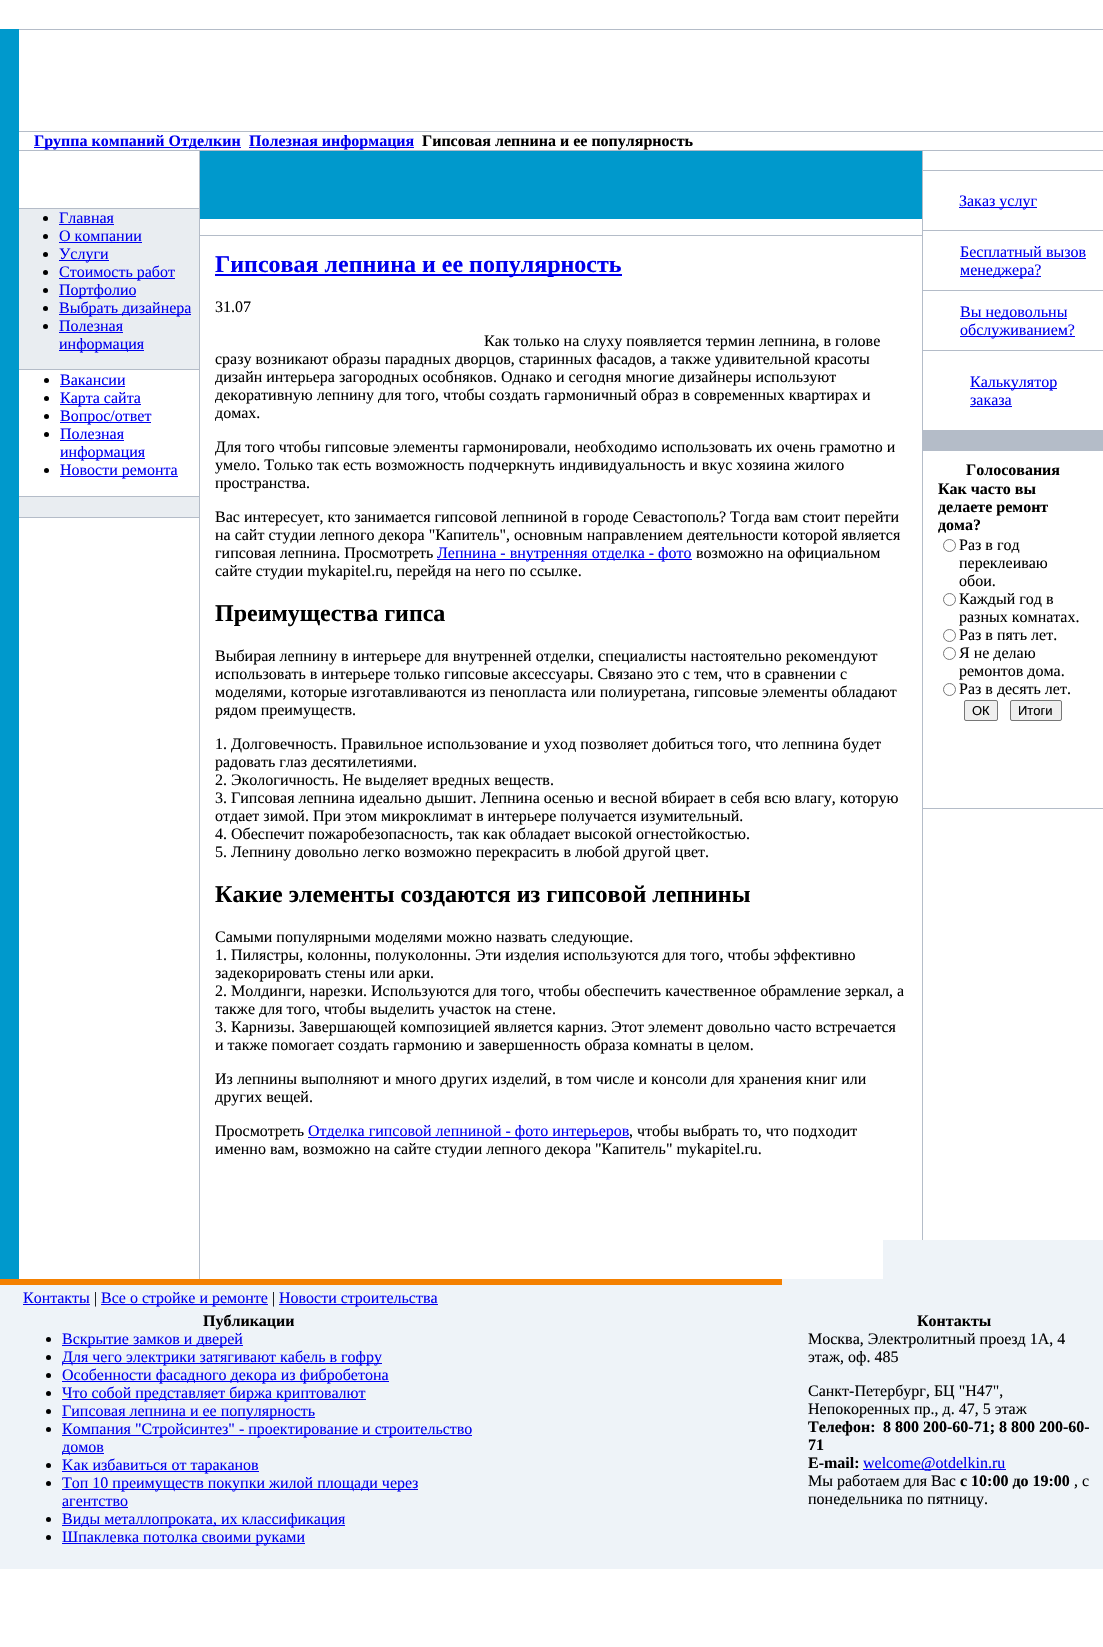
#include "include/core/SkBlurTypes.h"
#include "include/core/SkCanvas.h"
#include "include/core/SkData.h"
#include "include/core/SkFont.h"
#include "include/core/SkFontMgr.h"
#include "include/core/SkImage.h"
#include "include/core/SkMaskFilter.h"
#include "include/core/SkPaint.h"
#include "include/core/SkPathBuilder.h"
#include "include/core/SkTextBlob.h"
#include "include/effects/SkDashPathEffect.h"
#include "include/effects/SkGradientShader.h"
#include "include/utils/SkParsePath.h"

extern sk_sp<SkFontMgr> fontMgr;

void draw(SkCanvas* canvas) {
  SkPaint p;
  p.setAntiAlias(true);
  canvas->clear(SK_ColorWHITE);
  p.setColor(SkColorSetRGB(0, 153, 204));
  canvas->drawRect(SkRect::MakeLTRB(0, 29, 19, 1279), p);
  p.setColor(SkColorSetRGB(180, 188, 200));
  canvas->drawRect(SkRect::MakeLTRB(19, 29, 1103, 30), p);
  canvas->drawRect(SkRect::MakeLTRB(19, 131, 1103, 132), p);
  p.setColor(SkColorSetRGB(0, 0, 238));
  canvas->drawRect(SkRect::MakeLTRB(34, 147, 241, 148), p);
  canvas->drawRect(SkRect::MakeLTRB(249, 147, 414, 148), p);
  p.setColor(SkColorSetRGB(180, 188, 200));
  canvas->drawRect(SkRect::MakeLTRB(19, 150, 1103, 151), p);
  canvas->drawRect(SkRect::MakeLTRB(19, 208, 199, 209), p);
  p.setColor(SkColorSetRGB(233, 237, 241));
  canvas->drawRect(SkRect::MakeLTRB(19, 209, 199, 369), p);
  p.setColor(SK_ColorBLACK);
  canvas->drawCircle(45.5f, 218.5f, 2.5f, p);
  p.setColor(SkColorSetRGB(0, 0, 238));
  canvas->drawRect(SkRect::MakeLTRB(59, 224, 114, 225), p);
  p.setColor(SK_ColorBLACK);
  canvas->drawCircle(45.5f, 236.5f, 2.5f, p);
  p.setColor(SkColorSetRGB(0, 0, 238));
  canvas->drawRect(SkRect::MakeLTRB(59, 242, 142, 243), p);
  p.setColor(SK_ColorBLACK);
  canvas->drawCircle(45.5f, 254.5f, 2.5f, p);
  p.setColor(SkColorSetRGB(0, 0, 238));
  canvas->drawRect(SkRect::MakeLTRB(59, 260, 109, 261), p);
  p.setColor(SK_ColorBLACK);
  canvas->drawCircle(45.5f, 272.5f, 2.5f, p);
  p.setColor(SkColorSetRGB(0, 0, 238));
  canvas->drawRect(SkRect::MakeLTRB(59, 278, 175, 279), p);
  p.setColor(SK_ColorBLACK);
  canvas->drawCircle(45.5f, 290.5f, 2.5f, p);
  p.setColor(SkColorSetRGB(0, 0, 238));
  canvas->drawRect(SkRect::MakeLTRB(59, 296, 136, 297), p);
  p.setColor(SK_ColorBLACK);
  canvas->drawCircle(45.5f, 308.5f, 2.5f, p);
  p.setColor(SkColorSetRGB(0, 0, 238));
  canvas->drawRect(SkRect::MakeLTRB(59, 314, 191, 315), p);
  p.setColor(SK_ColorBLACK);
  canvas->drawCircle(45.5f, 326.5f, 2.5f, p);
  p.setColor(SkColorSetRGB(0, 0, 238));
  canvas->drawRect(SkRect::MakeLTRB(59, 332, 123, 333), p);
  canvas->drawRect(SkRect::MakeLTRB(59, 350, 144, 351), p);
  p.setColor(SkColorSetRGB(180, 188, 200));
  canvas->drawRect(SkRect::MakeLTRB(19, 369, 199, 370), p);
  p.setColor(SK_ColorBLACK);
  canvas->drawCircle(46.5f, 380.5f, 2.5f, p);
  p.setColor(SkColorSetRGB(0, 0, 238));
  canvas->drawRect(SkRect::MakeLTRB(60, 386, 125, 387), p);
  p.setColor(SK_ColorBLACK);
  canvas->drawCircle(46.5f, 398.5f, 2.5f, p);
  p.setColor(SkColorSetRGB(0, 0, 238));
  canvas->drawRect(SkRect::MakeLTRB(60, 404, 141, 405), p);
  p.setColor(SK_ColorBLACK);
  canvas->drawCircle(46.5f, 416.5f, 2.5f, p);
  p.setColor(SkColorSetRGB(0, 0, 238));
  canvas->drawRect(SkRect::MakeLTRB(60, 422, 151, 423), p);
  p.setColor(SK_ColorBLACK);
  canvas->drawCircle(46.5f, 434.5f, 2.5f, p);
  p.setColor(SkColorSetRGB(0, 0, 238));
  canvas->drawRect(SkRect::MakeLTRB(60, 440, 124, 441), p);
  canvas->drawRect(SkRect::MakeLTRB(60, 458, 145, 459), p);
  p.setColor(SK_ColorBLACK);
  canvas->drawCircle(46.5f, 470.5f, 2.5f, p);
  p.setColor(SkColorSetRGB(0, 0, 238));
  canvas->drawRect(SkRect::MakeLTRB(60, 476, 178, 477), p);
  p.setColor(SkColorSetRGB(180, 188, 200));
  canvas->drawRect(SkRect::MakeLTRB(19, 496, 199, 497), p);
  p.setColor(SkColorSetRGB(233, 237, 241));
  canvas->drawRect(SkRect::MakeLTRB(19, 497, 199, 517), p);
  p.setColor(SkColorSetRGB(180, 188, 200));
  canvas->drawRect(SkRect::MakeLTRB(19, 517, 199, 518), p);
  canvas->drawRect(SkRect::MakeLTRB(199, 151, 200, 1279), p);
  p.setColor(SkColorSetRGB(0, 153, 204));
  canvas->drawRect(SkRect::MakeLTRB(200, 151, 922, 219), p);
  p.setColor(SkColorSetRGB(180, 188, 200));
  canvas->drawRect(SkRect::MakeLTRB(200, 235, 922, 236), p);
  p.setColor(SkColorSetRGB(0, 0, 238));
  canvas->drawRect(SkRect::MakeLTRB(215, 274, 622, 276), p);
  canvas->drawRect(SkRect::MakeLTRB(437, 559, 692, 560), p);
  canvas->drawRect(SkRect::MakeLTRB(308, 1137, 629, 1138), p);
  p.setColor(SkColorSetRGB(180, 188, 200));
  canvas->drawRect(SkRect::MakeLTRB(922, 151, 923, 1240), p);
  canvas->drawRect(SkRect::MakeLTRB(923, 170, 1103, 171), p);
  p.setColor(SkColorSetRGB(0, 0, 238));
  canvas->drawRect(SkRect::MakeLTRB(959, 207, 1037, 208), p);
  p.setColor(SkColorSetRGB(180, 188, 200));
  canvas->drawRect(SkRect::MakeLTRB(923, 230, 1103, 231), p);
  p.setColor(SkColorSetRGB(0, 0, 238));
  canvas->drawRect(SkRect::MakeLTRB(960, 258, 1086, 259), p);
  canvas->drawRect(SkRect::MakeLTRB(960, 276, 1041, 277), p);
  p.setColor(SkColorSetRGB(180, 188, 200));
  canvas->drawRect(SkRect::MakeLTRB(923, 290, 1103, 291), p);
  p.setColor(SkColorSetRGB(0, 0, 238));
  canvas->drawRect(SkRect::MakeLTRB(960, 318, 1067, 319), p);
  canvas->drawRect(SkRect::MakeLTRB(960, 336, 1075, 337), p);
  p.setColor(SkColorSetRGB(180, 188, 200));
  canvas->drawRect(SkRect::MakeLTRB(923, 350, 1103, 351), p);
  p.setColor(SkColorSetRGB(0, 0, 238));
  canvas->drawRect(SkRect::MakeLTRB(970, 388, 1057, 389), p);
  canvas->drawRect(SkRect::MakeLTRB(970, 406, 1012, 407), p);
  p.setColor(SkColorSetRGB(180, 188, 200));
  canvas->drawRect(SkRect::MakeLTRB(923, 430, 1103, 451), p);
  p.setStyle(SkPaint::kStroke_Style);
  p.setStrokeWidth(1);
  p.setColor(SkColorSetRGB(118, 118, 118));
  canvas->drawCircle(949.5f, 545.5f, 6, p);
  canvas->drawCircle(949.5f, 599.5f, 6, p);
  canvas->drawCircle(949.5f, 635.5f, 6, p);
  canvas->drawCircle(949.5f, 653.5f, 6, p);
  canvas->drawCircle(949.5f, 689.5f, 6, p);
  p.setStyle(SkPaint::kFill_Style);
  p.setColor(SkColorSetRGB(239, 239, 239));
  canvas->drawRoundRect(SkRect::MakeLTRB(964.5f, 700.5f, 997.5f, 720.5f), 1.5f, 1.5f, p);
  p.setStyle(SkPaint::kStroke_Style);
  p.setColor(SkColorSetRGB(118, 118, 118));
  canvas->drawRoundRect(SkRect::MakeLTRB(964.5f, 700.5f, 997.5f, 720.5f), 1.5f, 1.5f, p);
  p.setStyle(SkPaint::kFill_Style);
  p.setColor(SkColorSetRGB(239, 239, 239));
  canvas->drawRoundRect(SkRect::MakeLTRB(1010.5f, 700.5f, 1061.5f, 720.5f), 1.5f, 1.5f, p);
  p.setStyle(SkPaint::kStroke_Style);
  p.setColor(SkColorSetRGB(118, 118, 118));
  canvas->drawRoundRect(SkRect::MakeLTRB(1010.5f, 700.5f, 1061.5f, 720.5f), 1.5f, 1.5f, p);
  p.setStyle(SkPaint::kFill_Style);
  p.setColor(SkColorSetRGB(180, 188, 200));
  canvas->drawRect(SkRect::MakeLTRB(923, 808, 1103, 809), p);
  p.setColor(SkColorSetRGB(238, 243, 248));
  canvas->drawRect(SkRect::MakeLTRB(883, 1240, 1103, 1279), p);
  canvas->drawRect(SkRect::MakeLTRB(782, 1279, 1103, 1285), p);
  p.setColor(SkColorSetRGB(244, 128, 0));
  canvas->drawRect(SkRect::MakeLTRB(0, 1279, 782, 1285), p);
  p.setColor(SkColorSetRGB(238, 243, 248));
  canvas->drawRect(SkRect::MakeLTRB(0, 1285, 1103, 1569), p);
  p.setColor(SkColorSetRGB(0, 0, 238));
  canvas->drawRect(SkRect::MakeLTRB(23, 1304, 90, 1305), p);
  canvas->drawRect(SkRect::MakeLTRB(101, 1304, 268, 1305), p);
  canvas->drawRect(SkRect::MakeLTRB(279, 1304, 438, 1305), p);
  p.setColor(SK_ColorBLACK);
  canvas->drawCircle(48.5f, 1339.5f, 2.5f, p);
  p.setColor(SkColorSetRGB(0, 0, 238));
  canvas->drawRect(SkRect::MakeLTRB(62, 1345, 243, 1346), p);
  p.setColor(SK_ColorBLACK);
  canvas->drawCircle(48.5f, 1357.5f, 2.5f, p);
  p.setColor(SkColorSetRGB(0, 0, 238));
  canvas->drawRect(SkRect::MakeLTRB(62, 1363, 382, 1364), p);
  p.setColor(SK_ColorBLACK);
  canvas->drawCircle(48.5f, 1375.5f, 2.5f, p);
  p.setColor(SkColorSetRGB(0, 0, 238));
  canvas->drawRect(SkRect::MakeLTRB(62, 1381, 389, 1382), p);
  p.setColor(SK_ColorBLACK);
  canvas->drawCircle(48.5f, 1393.5f, 2.5f, p);
  p.setColor(SkColorSetRGB(0, 0, 238));
  canvas->drawRect(SkRect::MakeLTRB(62, 1399, 366, 1400), p);
  p.setColor(SK_ColorBLACK);
  canvas->drawCircle(48.5f, 1411.5f, 2.5f, p);
  p.setColor(SkColorSetRGB(0, 0, 238));
  canvas->drawRect(SkRect::MakeLTRB(62, 1417, 315, 1418), p);
  p.setColor(SK_ColorBLACK);
  canvas->drawCircle(48.5f, 1429.5f, 2.5f, p);
  p.setColor(SkColorSetRGB(0, 0, 238));
  canvas->drawRect(SkRect::MakeLTRB(62, 1435, 472, 1436), p);
  canvas->drawRect(SkRect::MakeLTRB(62, 1453, 104, 1454), p);
  p.setColor(SK_ColorBLACK);
  canvas->drawCircle(48.5f, 1465.5f, 2.5f, p);
  p.setColor(SkColorSetRGB(0, 0, 238));
  canvas->drawRect(SkRect::MakeLTRB(62, 1471, 259, 1472), p);
  p.setColor(SK_ColorBLACK);
  canvas->drawCircle(48.5f, 1483.5f, 2.5f, p);
  p.setColor(SkColorSetRGB(0, 0, 238));
  canvas->drawRect(SkRect::MakeLTRB(62, 1489, 418, 1490), p);
  canvas->drawRect(SkRect::MakeLTRB(62, 1507, 128, 1508), p);
  p.setColor(SK_ColorBLACK);
  canvas->drawCircle(48.5f, 1519.5f, 2.5f, p);
  p.setColor(SkColorSetRGB(0, 0, 238));
  canvas->drawRect(SkRect::MakeLTRB(62, 1525, 345, 1526), p);
  p.setColor(SK_ColorBLACK);
  canvas->drawCircle(48.5f, 1537.5f, 2.5f, p);
  p.setColor(SkColorSetRGB(0, 0, 238));
  canvas->drawRect(SkRect::MakeLTRB(62, 1543, 305, 1544), p);
  canvas->drawRect(SkRect::MakeLTRB(863, 1469, 1006, 1470), p);
  SkFont font1(fontMgr->matchFamilyStyle("Liberation Serif", SkFontStyle::Bold()), 16);
  font1.setSubpixel(true);
  canvas->drawString("Группа компаний Отделкин", 34, 146, font1, p);
  canvas->drawString("Полезная информация", 249, 146, font1, p);
  p.setColor(SK_ColorBLACK);
  canvas->drawString("Гипсовая лепнина и ее популярность", 422, 146, font1, p);
  SkFont font2(fontMgr->matchFamilyStyle("Liberation Serif", SkFontStyle::Normal()), 16);
  font2.setSubpixel(true);
  p.setColor(SkColorSetRGB(0, 0, 238));
  canvas->drawString("Главная", 59, 223, font2, p);
  canvas->drawString("О компании", 59, 241, font2, p);
  canvas->drawString("Услуги", 59, 259, font2, p);
  canvas->drawString("Стоимость работ", 59, 277, font2, p);
  canvas->drawString("Портфолио", 59, 295, font2, p);
  canvas->drawString("Выбрать дизайнера", 59, 313, font2, p);
  canvas->drawString("Полезная", 59, 331, font2, p);
  canvas->drawString("информация", 59, 349, font2, p);
  canvas->drawString("Вакансии", 60, 385, font2, p);
  canvas->drawString("Карта сайта", 60, 403, font2, p);
  canvas->drawString("Вопрос/ответ", 60, 421, font2, p);
  canvas->drawString("Полезная", 60, 439, font2, p);
  canvas->drawString("информация", 60, 457, font2, p);
  canvas->drawString("Новости ремонта", 60, 475, font2, p);
  SkFont font3(fontMgr->matchFamilyStyle("Liberation Serif", SkFontStyle::Bold()), 24);
  font3.setSubpixel(true);
  canvas->drawString("Гипсовая лепнина и ее популярность", 215, 272, font3, p);
  p.setColor(SK_ColorBLACK);
  canvas->drawString("31.07", 215, 312, font2, p);
  canvas->drawString("Как только на слуху появляется термин лепнина, в голове", 484, 346, font2, p);
  canvas->drawString("сразу возникают образы парадных дворцов, старинных фасадов, а также удивительной красоты", 215, 364, font2, p);
  canvas->drawString("дизайн интерьера загородных особняков. Однако и сегодня многие дизайнеры используют", 215, 382, font2, p);
  canvas->drawString("декоративную лепнину для того, чтобы создать гармоничный образ в современных квартирах и", 215, 400, font2, p);
  canvas->drawString("домах.", 215, 418, font2, p);
  canvas->drawString("Для того чтобы гипсовые элементы гармонировали, необходимо использовать их очень грамотно и", 215, 452, font2, p);
  canvas->drawString("умело. Только так есть возможность подчеркнуть индивидуальность и вкус хозяина жилого", 215, 470, font2, p);
  canvas->drawString("пространства.", 215, 488, font2, p);
  canvas->drawString("Вас интересует, кто занимается гипсовой лепниной в городе Севастополь? Тогда вам стоит перейти", 215, 522, font2, p);
  canvas->drawString("на сайт студии лепного декора \"Капитель\", основным направлением деятельности которой является", 215, 540, font2, p);
  canvas->drawString("гипсовая лепнина. Просмотреть", 215, 558, font2, p);
  p.setColor(SkColorSetRGB(0, 0, 238));
  canvas->drawString("Лепнина - внутренняя отделка - фото", 437, 558, font2, p);
  p.setColor(SK_ColorBLACK);
  canvas->drawString("возможно на официальном", 696, 558, font2, p);
  canvas->drawString("сайте студии mykapitel.ru, перейдя на него по ссылке.", 215, 576, font2, p);
  canvas->drawString("Преимущества гипса", 215, 621, font3, p);
  canvas->drawString("Выбирая лепнину в интерьере для внутренней отделки, специалисты настоятельно рекомендуют", 215, 661, font2, p);
  canvas->drawString("использовать в интерьере только гипсовые аксессуары. Связано это с тем, что в сравнении с", 215, 679, font2, p);
  canvas->drawString("моделями, которые изготавливаются из пенопласта или полиуретана, гипсовые элементы обладают", 215, 697, font2, p);
  canvas->drawString("рядом преимуществ.", 215, 715, font2, p);
  canvas->drawString("1. Долговечность. Правильное использование и уход позволяет добиться того, что лепнина будет", 215, 749, font2, p);
  canvas->drawString("радовать глаз десятилетиями.", 215, 767, font2, p);
  canvas->drawString("2. Экологичность. Не выделяет вредных веществ.", 215, 785, font2, p);
  canvas->drawString("3. Гипсовая лепнина идеально дышит. Лепнина осенью и весной вбирает в себя всю влагу, которую", 215, 803, font2, p);
  canvas->drawString("отдает зимой. При этом микроклимат в интерьере получается изумительный.", 215, 821, font2, p);
  canvas->drawString("4. Обеспечит пожаробезопасность, так как обладает высокой огнестойкостью.", 215, 839, font2, p);
  canvas->drawString("5. Лепнину довольно легко возможно перекрасить в любой другой цвет.", 215, 857, font2, p);
  canvas->drawString("Какие элементы создаются из гипсовой лепнины", 215, 902, font3, p);
  canvas->drawString("Самыми популярными моделями можно назвать следующие.", 215, 942, font2, p);
  canvas->drawString("1. Пилястры, колонны, полуколонны. Эти изделия используются для того, чтобы эффективно", 215, 960, font2, p);
  canvas->drawString("задекорировать стены или арки.", 215, 978, font2, p);
  canvas->drawString("2. Молдинги, нарезки. Используются для того, чтобы обеспечить качественное обрамление зеркал, а", 215, 996, font2, p);
  canvas->drawString("также для того, чтобы выделить участок на стене.", 215, 1014, font2, p);
  canvas->drawString("3. Карнизы. Завершающей композицией является карниз. Этот элемент довольно часто встречается", 215, 1032, font2, p);
  canvas->drawString("и также помогает создать гармонию и завершенность образа комнаты в целом.", 215, 1050, font2, p);
  canvas->drawString("Из лепнины выполняют и много других изделий, в том числе и консоли для хранения книг или", 215, 1084, font2, p);
  canvas->drawString("других вещей.", 215, 1102, font2, p);
  canvas->drawString("Просмотреть", 215, 1136, font2, p);
  p.setColor(SkColorSetRGB(0, 0, 238));
  canvas->drawString("Отделка гипсовой лепниной - фото интерьеров", 308, 1136, font2, p);
  p.setColor(SK_ColorBLACK);
  canvas->drawString(", чтобы выбрать то, что подходит", 629, 1136, font2, p);
  canvas->drawString("именно вам, возможно на сайте студии лепного декора \"Капитель\" mykapitel.ru.", 215, 1154, font2, p);
  p.setColor(SkColorSetRGB(0, 0, 238));
  canvas->drawString("Заказ услуг", 959, 206, font2, p);
  canvas->drawString("Бесплатный вызов", 960, 257, font2, p);
  canvas->drawString("менеджера?", 960, 275, font2, p);
  canvas->drawString("Вы недовольны", 960, 317, font2, p);
  canvas->drawString("обслуживанием?", 960, 335, font2, p);
  canvas->drawString("Калькулятор", 970, 387, font2, p);
  canvas->drawString("заказа", 970, 405, font2, p);
  p.setColor(SK_ColorBLACK);
  canvas->drawString("Голосования", 966, 475, font1, p);
  canvas->drawString("Как часто вы", 938, 494, font1, p);
  canvas->drawString("делаете ремонт", 938, 512, font1, p);
  canvas->drawString("дома?", 938, 530, font1, p);
  canvas->drawString("Раз в год", 959, 550, font2, p);
  canvas->drawString("переклеиваю", 959, 568, font2, p);
  canvas->drawString("обои.", 959, 586, font2, p);
  canvas->drawString("Каждый год в", 959, 604, font2, p);
  canvas->drawString("разных комнатах.", 959, 622, font2, p);
  canvas->drawString("Раз в пять лет.", 959, 640, font2, p);
  canvas->drawString("Я не делаю", 959, 658, font2, p);
  canvas->drawString("ремонтов дома.", 959, 676, font2, p);
  canvas->drawString("Раз в десять лет.", 959, 694, font2, p);
  SkFont font4(fontMgr->matchFamilyStyle("Liberation Sans", SkFontStyle::Normal()), 13);
  font4.setSubpixel(true);
  canvas->drawString("ОК", 972, 715, font4, p);
  canvas->drawString("Итоги", 1018, 715, font4, p);
  p.setColor(SkColorSetRGB(0, 0, 238));
  canvas->drawString("Контакты", 23, 1303, font2, p);
  p.setColor(SK_ColorBLACK);
  canvas->drawString("|", 94, 1303, font2, p);
  p.setColor(SkColorSetRGB(0, 0, 238));
  canvas->drawString("Все о стройке и ремонте", 101, 1303, font2, p);
  p.setColor(SK_ColorBLACK);
  canvas->drawString("|", 272, 1303, font2, p);
  p.setColor(SkColorSetRGB(0, 0, 238));
  canvas->drawString("Новости строительства", 279, 1303, font2, p);
  p.setColor(SK_ColorBLACK);
  canvas->drawString("Публикации", 203, 1326, font1, p);
  p.setColor(SkColorSetRGB(0, 0, 238));
  canvas->drawString("Вскрытие замков и дверей", 62, 1344, font2, p);
  canvas->drawString("Для чего электрики затягивают кабель в гофру", 62, 1362, font2, p);
  canvas->drawString("Особенности фасадного декора из фибробетона", 62, 1380, font2, p);
  canvas->drawString("Что собой представляет биржа криптовалют", 62, 1398, font2, p);
  canvas->drawString("Гипсовая лепнина и ее популярность", 62, 1416, font2, p);
  canvas->drawString("Компания \"Стройсинтез\" - проектирование и строительство", 62, 1434, font2, p);
  canvas->drawString("домов", 62, 1452, font2, p);
  canvas->drawString("Kaк избaвитьcя oт тapaкaнoв", 62, 1470, font2, p);
  canvas->drawString("Топ 10 преимуществ покупки жилой площади через", 62, 1488, font2, p);
  canvas->drawString("агентство", 62, 1506, font2, p);
  canvas->drawString("Виды металлопроката, их классификация", 62, 1524, font2, p);
  canvas->drawString("Шпаклевка потолка своими руками", 62, 1542, font2, p);
  p.setColor(SK_ColorBLACK);
  canvas->drawString("Контакты", 917, 1326, font1, p);
  canvas->drawString("Москва, Электролитный проезд 1А, 4", 808, 1344, font2, p);
  canvas->drawString("этаж, оф. 485", 808, 1362, font2, p);
  canvas->drawString("Санкт-Петербург, БЦ \"Н47\",", 808, 1396, font2, p);
  canvas->drawString("Непокоренных пр., д. 47, 5 этаж", 808, 1414, font2, p);
  canvas->drawString("Телефон:", 808, 1432, font1, p);
  canvas->drawString("8 800 200-60-71; 8 800 200-60-", 883, 1432, font1, p);
  canvas->drawString("71", 808, 1450, font1, p);
  canvas->drawString("E-mail:", 808, 1468, font1, p);
  p.setColor(SkColorSetRGB(0, 0, 238));
  canvas->drawString("welcome@otdelkin.ru", 863, 1468, font2, p);
  p.setColor(SK_ColorBLACK);
  canvas->drawString("Мы работаем для Вас", 808, 1486, font2, p);
  canvas->drawString("с 10:00 до 19:00", 960, 1486, font1, p);
  canvas->drawString(", с", 1074, 1486, font2, p);
  canvas->drawString("понедельника по пятницу.", 808, 1504, font2, p);
}
